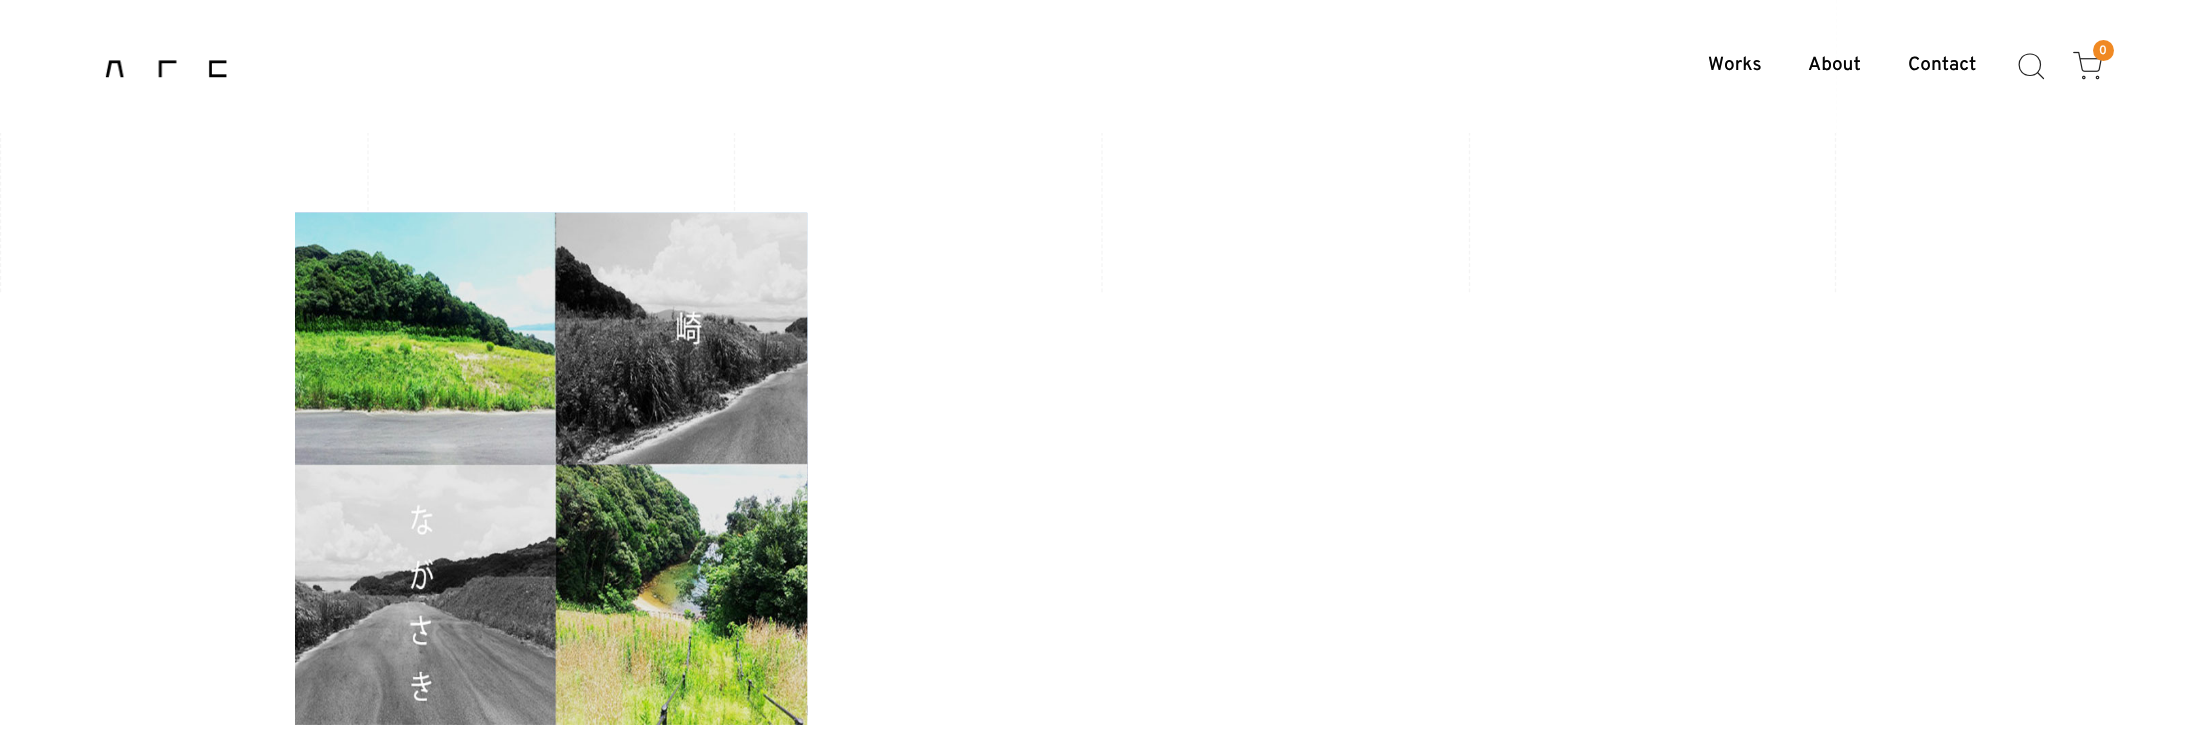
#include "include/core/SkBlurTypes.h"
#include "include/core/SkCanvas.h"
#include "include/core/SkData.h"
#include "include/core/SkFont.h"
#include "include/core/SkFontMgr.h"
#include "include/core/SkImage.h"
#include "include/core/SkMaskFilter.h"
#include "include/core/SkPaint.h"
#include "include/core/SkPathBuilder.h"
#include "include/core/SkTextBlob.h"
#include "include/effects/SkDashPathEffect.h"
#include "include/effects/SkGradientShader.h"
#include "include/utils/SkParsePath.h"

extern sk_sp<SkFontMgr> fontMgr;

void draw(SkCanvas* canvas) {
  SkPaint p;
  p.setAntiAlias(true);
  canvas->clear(SK_ColorWHITE);
  p.setStyle(SkPaint::kStroke_Style);
  p.setStrokeWidth(1.2f);
  p.setColor(SkColorSetRGB(244, 244, 244));
  p.setPathEffect(SkDashPathEffect::Make({{3.75f, 2.52f}}, 0));
  canvas->drawPath(SkPathBuilder().moveTo(0.5f, 0).lineTo(0.5f, 292.5f).detach(), p);
  p.setPathEffect(nullptr);
  p.setPathEffect(SkDashPathEffect::Make({{3.75f, 2.52f}}, 0));
  canvas->drawPath(SkPathBuilder().moveTo(368, 0).lineTo(368, 292.5f).detach(), p);
  p.setPathEffect(nullptr);
  p.setPathEffect(SkDashPathEffect::Make({{3.75f, 2.52f}}, 0));
  canvas->drawPath(SkPathBuilder().moveTo(734.5f, 0).lineTo(734.5f, 292.5f).detach(), p);
  p.setPathEffect(nullptr);
  p.setPathEffect(SkDashPathEffect::Make({{3.75f, 2.52f}}, 0));
  canvas->drawPath(SkPathBuilder().moveTo(1102, 0).lineTo(1102, 292.5f).detach(), p);
  p.setPathEffect(nullptr);
  p.setPathEffect(SkDashPathEffect::Make({{3.75f, 2.52f}}, 0));
  canvas->drawPath(SkPathBuilder().moveTo(1469.5f, 0).lineTo(1469.5f, 292.5f).detach(), p);
  p.setPathEffect(nullptr);
  p.setPathEffect(SkDashPathEffect::Make({{3.75f, 2.52f}}, 0));
  canvas->drawPath(SkPathBuilder().moveTo(1835.5f, 0).lineTo(1835.5f, 292.5f).detach(), p);
  p.setPathEffect(nullptr);
  canvas->drawImageRect(SkImages::DeferredFromEncodedData(SkData::MakeFromFileName("images/1.png")), SkRect::MakeLTRB(295, 212, 808, 725), SkSamplingOptions());
  canvas->drawImageRect(SkImages::DeferredFromEncodedData(SkData::MakeFromFileName("images/2.png")), SkRect::MakeLTRB(295, 212, 808, 725), SkSamplingOptions());
  p.setStyle(SkPaint::kFill_Style);
  p.setColor(SK_ColorWHITE);
  canvas->drawRect(SkRect::MakeLTRB(0, 0, 1836, 133), p);
  canvas->drawImageRect(SkImages::DeferredFromEncodedData(SkData::MakeFromFileName("images/3.png")), SkRect::MakeLTRB(105, 60, 227, 78), SkSamplingOptions());
  canvas->drawImageRect(SkImages::DeferredFromEncodedData(SkData::MakeFromFileName("images/4.png")), SkRect::MakeLTRB(2073, 51, 2102, 80), SkSamplingOptions());
  p.setColor(SkColorSetRGB(240, 137, 35));
  canvas->drawCircle(2103.5f, 50.5f, 10.5f, p);
  p.setStyle(SkPaint::kStroke_Style);
  p.setStrokeCap(SkPaint::kRound_Cap);
  p.setStrokeJoin(SkPaint::kRound_Join);
  p.setColor(SkColorSetRGB(33, 33, 33));
  canvas->drawPath(SkPathBuilder().moveTo(2030, 75.5f).cubicTo(2044, 75.5f, 2044, 54, 2030, 54).cubicTo(2015.5f, 54, 2015.5f, 75.5f, 2030, 75.5f).close().moveTo(2043.5f, 78.5f).lineTo(2037.5f, 72.5f).detach(), p);
  SkFont font1(fontMgr->matchFamilyStyle("Overpass", SkFontStyle(500, SkFontStyle::kNormal_Width, SkFontStyle::kUpright_Slant)), 12);
  font1.setSubpixel(true);
  p.setStyle(SkPaint::kFill_Style);
  p.setColor(SK_ColorWHITE);
  canvas->drawString("0", 2099, 54, font1, p);
  SkFont font2(fontMgr->matchFamilyStyle("Overpass", SkFontStyle(500, SkFontStyle::kNormal_Width, SkFontStyle::kUpright_Slant)), 19);
  font2.setSubpixel(true);
  p.setColor(SkColorSetRGB(5, 5, 5));
  canvas->drawString("Works", 1708, 70, font2, p);
  canvas->drawString("About", 1808, 70, font2, p);
  canvas->drawString("Contact", 1908, 70, font2, p);
}
